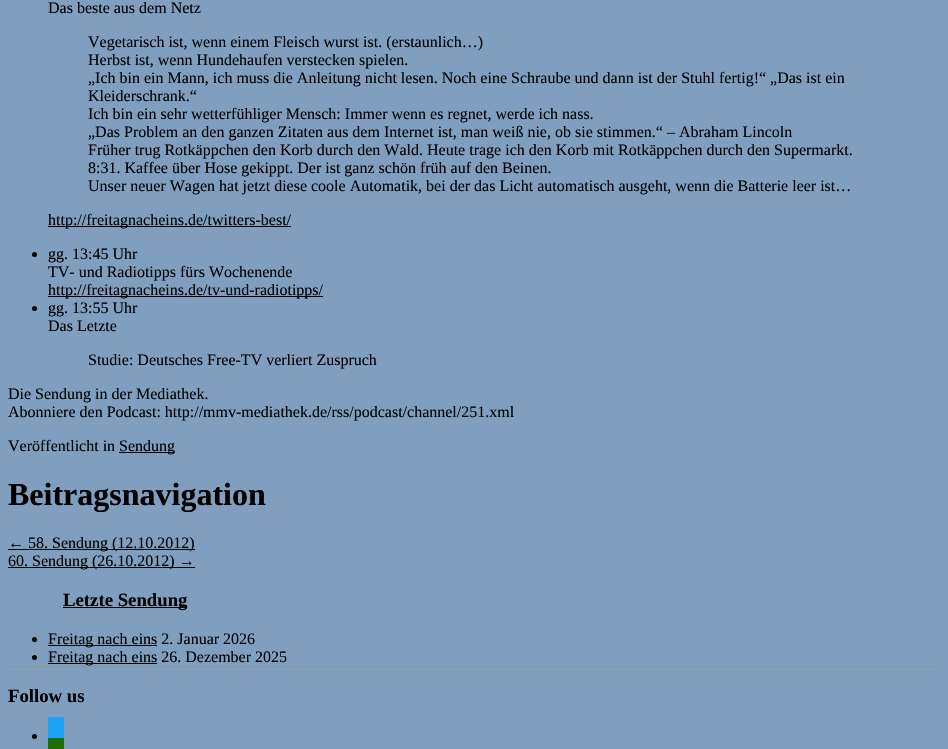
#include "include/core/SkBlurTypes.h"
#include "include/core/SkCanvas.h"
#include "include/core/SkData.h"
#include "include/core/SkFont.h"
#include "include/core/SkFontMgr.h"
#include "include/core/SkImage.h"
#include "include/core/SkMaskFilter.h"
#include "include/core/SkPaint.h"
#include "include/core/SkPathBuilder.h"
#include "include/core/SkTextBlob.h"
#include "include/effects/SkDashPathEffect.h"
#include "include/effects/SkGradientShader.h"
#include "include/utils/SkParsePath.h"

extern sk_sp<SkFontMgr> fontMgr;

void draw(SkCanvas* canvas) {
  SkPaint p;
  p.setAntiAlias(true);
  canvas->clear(SkColorSetRGB(128, 159, 191));
  p.setColor(SK_ColorBLACK);
  canvas->drawRect(SkRect::MakeLTRB(48, 226, 291, 227), p);
  canvas->drawCircle(34.5f, 254.5f, 2.5f, p);
  canvas->drawRect(SkRect::MakeLTRB(48, 296, 323, 297), p);
  canvas->drawCircle(34.5f, 308.5f, 2.5f, p);
  canvas->drawRect(SkRect::MakeLTRB(119, 452, 175, 453), p);
  canvas->drawRect(SkRect::MakeLTRB(8, 549, 195, 550), p);
  canvas->drawRect(SkRect::MakeLTRB(8, 567, 195, 568), p);
  p.setColor(SkColorSetRGB(147, 147, 147));
  canvas->drawRect(SkRect::MakeLTRB(8, 666, 940, 667), p);
  p.setColor(SK_ColorBLACK);
  canvas->drawRect(SkRect::MakeLTRB(63, 607, 187, 608), p);
  canvas->drawCircle(34.5f, 639.5f, 2.5f, p);
  canvas->drawRect(SkRect::MakeLTRB(48, 645, 157, 646), p);
  canvas->drawCircle(34.5f, 657.5f, 2.5f, p);
  canvas->drawRect(SkRect::MakeLTRB(48, 663, 157, 664), p);
  canvas->drawCircle(34.5f, 736.5f, 2.5f, p);
  p.setColor(SkColorSetRGB(29, 161, 242));
  canvas->drawRect(SkRect::MakeLTRB(48, 717, 64, 738), p);
  p.setColor(SkColorSetRGB(29, 109, 9));
  canvas->drawRect(SkRect::MakeLTRB(48, 738, 64, 749), p);
  SkFont font1(fontMgr->matchFamilyStyle("Liberation Serif", SkFontStyle::Normal()), 16);
  font1.setSubpixel(true);
  p.setColor(SK_ColorBLACK);
  canvas->drawString("Das beste aus dem Netz", 48, 13, font1, p);
  canvas->drawString("Vegetarisch ist, wenn einem Fleisch wurst ist. (erstaunlich…)", 88, 47, font1, p);
  canvas->drawString("Herbst ist, wenn Hundehaufen verstecken spielen.", 88, 65, font1, p);
  canvas->drawString("„Ich bin ein Mann, ich muss die Anleitung nicht lesen. Noch eine Schraube und dann ist der Stuhl fertig!“ „Das ist ein", 88, 83, font1, p);
  canvas->drawString("Kleiderschrank.“", 88, 101, font1, p);
  canvas->drawString("Ich bin ein sehr wetterfühliger Mensch: Immer wenn es regnet, werde ich nass.", 88, 119, font1, p);
  canvas->drawString("„Das Problem an den ganzen Zitaten aus dem Internet ist, man weiß nie, ob sie stimmen.“ – Abraham Lincoln", 88, 137, font1, p);
  canvas->drawString("Früher trug Rotkäppchen den Korb durch den Wald. Heute trage ich den Korb mit Rotkäppchen durch den Supermarkt.", 88, 155, font1, p);
  canvas->drawString("8:31. Kaffee über Hose gekippt. Der ist ganz schön früh auf den Beinen.", 88, 173, font1, p);
  canvas->drawString("Unser neuer Wagen hat jetzt diese coole Automatik, bei der das Licht automatisch ausgeht, wenn die Batterie leer ist…", 88, 191, font1, p);
  canvas->drawString("http://freitagnacheins.de/twitters-best/", 48, 225, font1, p);
  canvas->drawString("gg. 13:45 Uhr", 48, 259, font1, p);
  canvas->drawString("TV- und Radiotipps fürs Wochenende", 48, 277, font1, p);
  canvas->drawString("http://freitagnacheins.de/tv-und-radiotipps/", 48, 295, font1, p);
  canvas->drawString("gg. 13:55 Uhr", 48, 313, font1, p);
  canvas->drawString("Das Letzte", 48, 331, font1, p);
  canvas->drawString("Studie: Deutsches Free-TV verliert Zuspruch", 88, 365, font1, p);
  canvas->drawString("Die Sendung in der Mediathek.", 8, 399, font1, p);
  canvas->drawString("Abonniere den Podcast: http://mmv-mediathek.de/rss/podcast/channel/251.xml", 8, 417, font1, p);
  canvas->drawString("Veröffentlicht in", 8, 451, font1, p);
  canvas->drawString("Sendung", 119, 451, font1, p);
  SkFont font2(fontMgr->matchFamilyStyle("Liberation Serif", SkFontStyle::Bold()), 32);
  font2.setSubpixel(true);
  canvas->drawString("Beitragsnavigation", 8, 505, font2, p);
  canvas->drawString("← 58. Sendung (12.10.2012)", 8, 548, font1, p);
  canvas->drawString("60. Sendung (26.10.2012) →", 8, 566, font1, p);
  SkFont font3(fontMgr->matchFamilyStyle("Liberation Serif", SkFontStyle::Bold()), 18.75f);
  font3.setSubpixel(true);
  canvas->drawString("Letzte Sendung", 63, 606, font3, p);
  canvas->drawString("Freitag nach eins 2. Januar 2026", 48, 644, font1, p);
  canvas->drawString("Freitag nach eins 26. Dezember 2025", 48, 662, font1, p);
  canvas->drawString("Follow us", 8, 702, font3, p);
}
